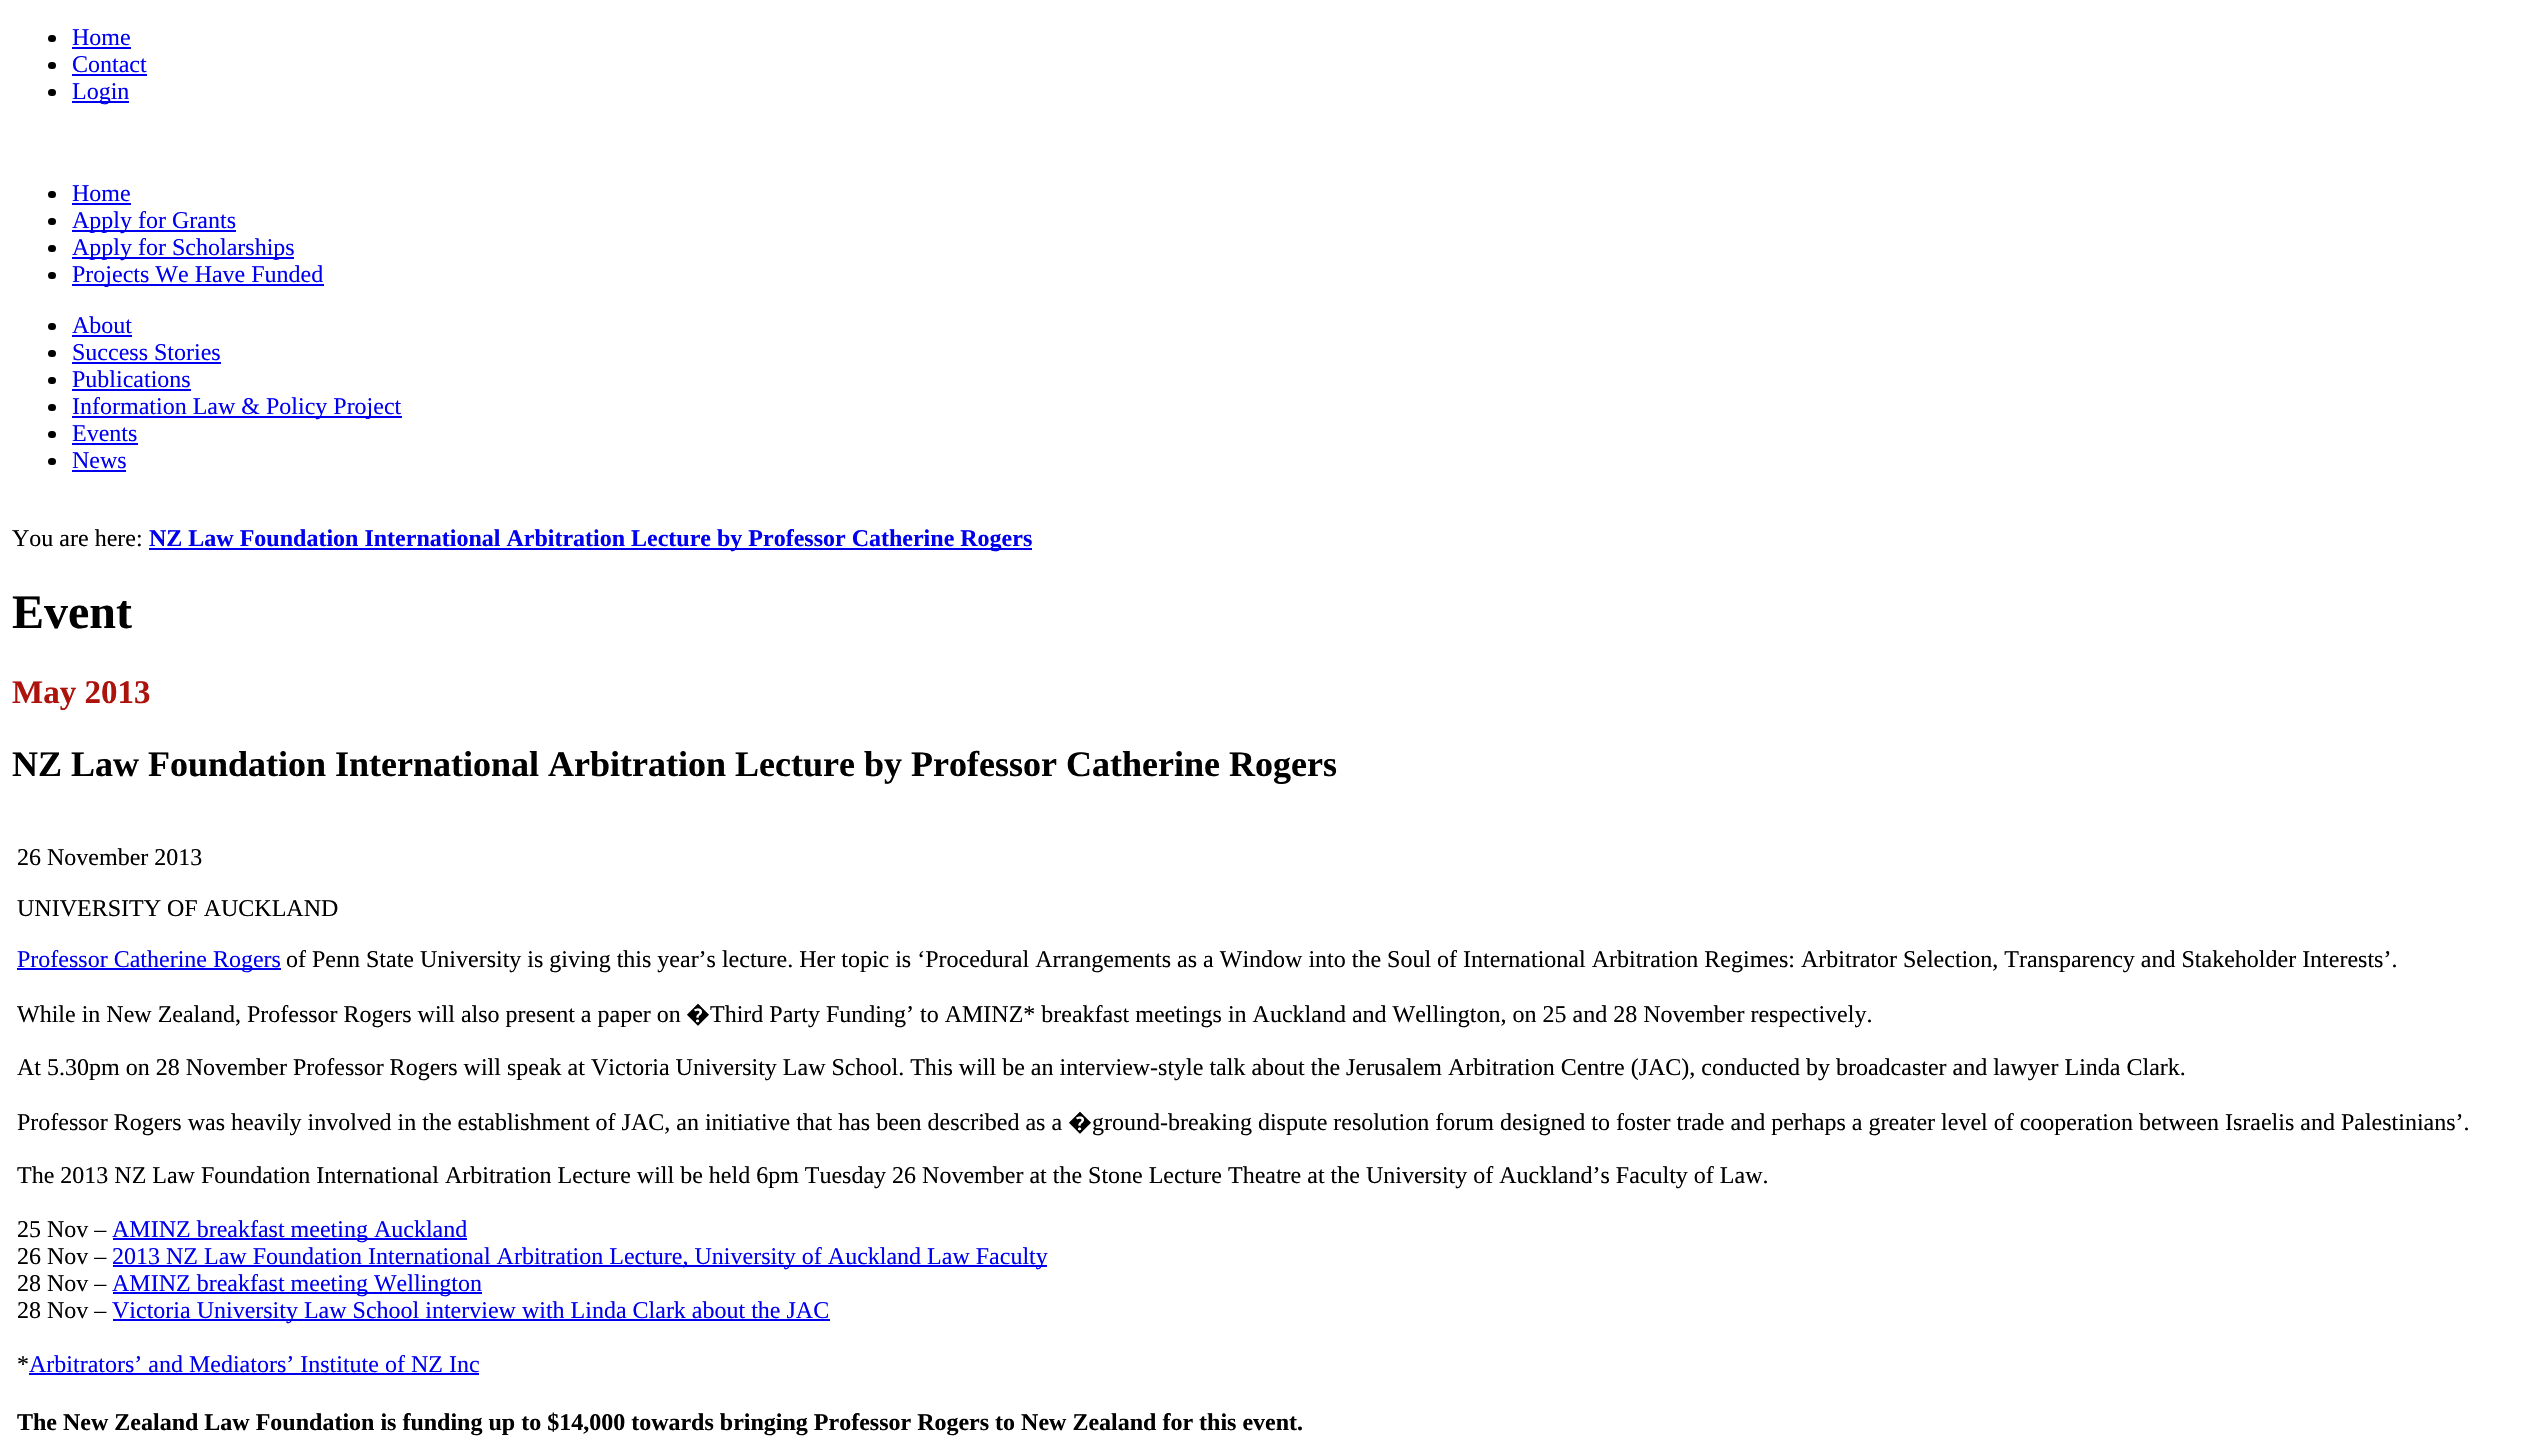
#include "include/core/SkBlurTypes.h"
#include "include/core/SkCanvas.h"
#include "include/core/SkData.h"
#include "include/core/SkFont.h"
#include "include/core/SkFontMgr.h"
#include "include/core/SkImage.h"
#include "include/core/SkMaskFilter.h"
#include "include/core/SkPaint.h"
#include "include/core/SkPathBuilder.h"
#include "include/core/SkTextBlob.h"
#include "include/effects/SkDashPathEffect.h"
#include "include/effects/SkGradientShader.h"
#include "include/utils/SkParsePath.h"

extern sk_sp<SkFontMgr> fontMgr;

void draw(SkCanvas* canvas) {
  SkPaint p;
  p.setAntiAlias(true);
  canvas->clear(SK_ColorWHITE);
  p.setColor(SK_ColorBLACK);
  canvas->drawRoundRect(SkRect::MakeLTRB(48, 35, 56, 42), 3.5f, 3.5f, p);
  p.setColor(SkColorSetRGB(0, 0, 238));
  canvas->drawRect(SkRect::MakeLTRB(72, 47, 131, 49), p);
  p.setColor(SK_ColorBLACK);
  canvas->drawRoundRect(SkRect::MakeLTRB(48, 62, 56, 69), 3.5f, 3.5f, p);
  p.setColor(SkColorSetRGB(0, 0, 238));
  canvas->drawRect(SkRect::MakeLTRB(72, 74, 147, 76), p);
  p.setColor(SK_ColorBLACK);
  canvas->drawRoundRect(SkRect::MakeLTRB(48, 89, 56, 96), 3.5f, 3.5f, p);
  p.setColor(SkColorSetRGB(0, 0, 238));
  canvas->drawRect(SkRect::MakeLTRB(72, 101, 129, 103), p);
  p.setColor(SK_ColorBLACK);
  canvas->drawRoundRect(SkRect::MakeLTRB(48, 191, 56, 198), 3.5f, 3.5f, p);
  p.setColor(SkColorSetRGB(0, 0, 238));
  canvas->drawRect(SkRect::MakeLTRB(72, 203, 131, 205), p);
  p.setColor(SK_ColorBLACK);
  canvas->drawRoundRect(SkRect::MakeLTRB(48, 218, 56, 225), 3.5f, 3.5f, p);
  p.setColor(SkColorSetRGB(0, 0, 238));
  canvas->drawRect(SkRect::MakeLTRB(72, 230, 236, 232), p);
  p.setColor(SK_ColorBLACK);
  canvas->drawRoundRect(SkRect::MakeLTRB(48, 245, 56, 252), 3.5f, 3.5f, p);
  p.setColor(SkColorSetRGB(0, 0, 238));
  canvas->drawRect(SkRect::MakeLTRB(72, 257, 294, 259), p);
  p.setColor(SK_ColorBLACK);
  canvas->drawRoundRect(SkRect::MakeLTRB(48, 272, 56, 279), 3.5f, 3.5f, p);
  p.setColor(SkColorSetRGB(0, 0, 238));
  canvas->drawRect(SkRect::MakeLTRB(72, 284, 324, 286), p);
  p.setColor(SK_ColorBLACK);
  canvas->drawRoundRect(SkRect::MakeLTRB(48, 323, 56, 330), 3.5f, 3.5f, p);
  p.setColor(SkColorSetRGB(0, 0, 238));
  canvas->drawRect(SkRect::MakeLTRB(72, 335, 132, 337), p);
  p.setColor(SK_ColorBLACK);
  canvas->drawRoundRect(SkRect::MakeLTRB(48, 350, 56, 357), 3.5f, 3.5f, p);
  p.setColor(SkColorSetRGB(0, 0, 238));
  canvas->drawRect(SkRect::MakeLTRB(72, 362, 221, 364), p);
  p.setColor(SK_ColorBLACK);
  canvas->drawRoundRect(SkRect::MakeLTRB(48, 377, 56, 384), 3.5f, 3.5f, p);
  p.setColor(SkColorSetRGB(0, 0, 238));
  canvas->drawRect(SkRect::MakeLTRB(72, 389, 191, 391), p);
  p.setColor(SK_ColorBLACK);
  canvas->drawRoundRect(SkRect::MakeLTRB(48, 404, 56, 411), 3.5f, 3.5f, p);
  p.setColor(SkColorSetRGB(0, 0, 238));
  canvas->drawRect(SkRect::MakeLTRB(72, 416, 402, 418), p);
  p.setColor(SK_ColorBLACK);
  canvas->drawRoundRect(SkRect::MakeLTRB(48, 431, 56, 438), 3.5f, 3.5f, p);
  p.setColor(SkColorSetRGB(0, 0, 238));
  canvas->drawRect(SkRect::MakeLTRB(72, 443, 138, 445), p);
  p.setColor(SK_ColorBLACK);
  canvas->drawRoundRect(SkRect::MakeLTRB(48, 458, 56, 465), 3.5f, 3.5f, p);
  p.setColor(SkColorSetRGB(0, 0, 238));
  canvas->drawRect(SkRect::MakeLTRB(72, 470, 126, 472), p);
  canvas->drawRect(SkRect::MakeLTRB(149, 548, 1032, 550), p);
  canvas->drawRect(SkRect::MakeLTRB(17, 968, 281, 970), p);
  canvas->drawRect(SkRect::MakeLTRB(113, 1238, 467, 1240), p);
  canvas->drawRect(SkRect::MakeLTRB(113, 1265, 1047, 1267), p);
  canvas->drawRect(SkRect::MakeLTRB(113, 1292, 482, 1294), p);
  canvas->drawRect(SkRect::MakeLTRB(113, 1319, 830, 1321), p);
  canvas->drawRect(SkRect::MakeLTRB(29, 1373, 479, 1375), p);
  SkFont font1(fontMgr->matchFamilyStyle("Liberation Serif", SkFontStyle::Normal()), 24);
  font1.setSubpixel(true);
  canvas->drawString("Home", 72, 45, font1, p);
  canvas->drawString("Contact", 72, 72, font1, p);
  canvas->drawString("Login", 72, 99, font1, p);
  canvas->drawString("Home", 72, 201, font1, p);
  canvas->drawString("Apply for Grants", 72, 228, font1, p);
  canvas->drawString("Apply for Scholarships", 72, 255, font1, p);
  canvas->drawString("Projects We Have Funded", 72, 282, font1, p);
  canvas->drawString("About", 72, 333, font1, p);
  canvas->drawString("Success Stories", 72, 360, font1, p);
  canvas->drawString("Publications", 72, 387, font1, p);
  canvas->drawString("Information Law & Policy Project", 72, 414, font1, p);
  canvas->drawString("Events", 72, 441, font1, p);
  canvas->drawString("News", 72, 468, font1, p);
  p.setColor(SK_ColorBLACK);
  canvas->drawString("You are here:", 12, 546, font1, p);
  SkFont font2(fontMgr->matchFamilyStyle("Liberation Serif", SkFontStyle::Bold()), 24);
  font2.setSubpixel(true);
  p.setColor(SkColorSetRGB(0, 0, 238));
  canvas->drawString("NZ Law Foundation International Arbitration Lecture by Professor Catherine Rogers", 149, 546, font2, p);
  SkFont font3(fontMgr->matchFamilyStyle("Liberation Serif", SkFontStyle::Bold()), 48);
  font3.setSubpixel(true);
  p.setColor(SK_ColorBLACK);
  canvas->drawString("Event", 12, 628, font3, p);
  SkFont font4(fontMgr->matchFamilyStyle("Liberation Serif", SkFontStyle::Bold()), 33);
  font4.setSubpixel(true);
  p.setColor(SkColorSetRGB(172, 19, 13));
  canvas->drawString("May 2013", 12, 703, font4, p);
  SkFont font5(fontMgr->matchFamilyStyle("Liberation Serif", SkFontStyle::Bold()), 36);
  font5.setSubpixel(true);
  p.setColor(SK_ColorBLACK);
  canvas->drawString("NZ Law Foundation International Arbitration Lecture by Professor Catherine Rogers", 12, 776, font5, p);
  canvas->drawString("26 November 2013", 17, 865, font1, p);
  canvas->drawString("UNIVERSITY OF AUCKLAND", 17, 916, font1, p);
  p.setColor(SkColorSetRGB(0, 0, 238));
  canvas->drawString("Professor Catherine Rogers", 17, 967, font1, p);
  p.setColor(SK_ColorBLACK);
  canvas->drawString("of Penn State University is giving this year’s lecture. Her topic is ‘Procedural Arrangements as a Window into the Soul of International Arbitration Regimes: Arbitrator Selection, Transparency and Stakeholder Interests’.", 286, 967, font1, p);
  canvas->drawString("While in New Zealand, Professor Rogers will also present a paper on", 17, 1022, font1, p);
  SkFont font6(fontMgr->matchFamilyStyle("Noto Sans", SkFontStyle::Normal()), 24);
  font6.setSubpixel(true);
  canvas->drawString("�", 686, 1022, font6, p);
  canvas->drawString("Third Party Funding’ to AMINZ* breakfast meetings in Auckland and Wellington, on 25 and 28 November respectively.", 710, 1022, font1, p);
  canvas->drawString("At 5.30pm on 28 November Professor Rogers will speak at Victoria University Law School. This will be an interview-style talk about the Jerusalem Arbitration Centre (JAC), conducted by broadcaster and lawyer Linda Clark.", 17, 1075, font1, p);
  canvas->drawString("Professor Rogers was heavily involved in the establishment of JAC, an initiative that has been described as a", 17, 1130, font1, p);
  canvas->drawString("�", 1068, 1130, font6, p);
  canvas->drawString("ground-breaking dispute resolution forum designed to foster trade and perhaps a greater level of cooperation between Israelis and Palestinians’.", 1092, 1130, font1, p);
  canvas->drawString("The 2013 NZ Law Foundation International Arbitration Lecture will be held 6pm Tuesday 26 November at the Stone Lecture Theatre at the University of Auckland’s Faculty of Law.", 17, 1183, font1, p);
  canvas->drawString("25 Nov –", 17, 1237, font1, p);
  p.setColor(SkColorSetRGB(0, 0, 238));
  canvas->drawString("AMINZ breakfast meeting Auckland", 112, 1237, font1, p);
  p.setColor(SK_ColorBLACK);
  canvas->drawString("26 Nov –", 17, 1264, font1, p);
  p.setColor(SkColorSetRGB(0, 0, 238));
  canvas->drawString("2013 NZ Law Foundation International Arbitration Lecture, University of Auckland Law Faculty", 112, 1264, font1, p);
  p.setColor(SK_ColorBLACK);
  canvas->drawString("28 Nov –", 17, 1291, font1, p);
  p.setColor(SkColorSetRGB(0, 0, 238));
  canvas->drawString("AMINZ breakfast meeting Wellington", 112, 1291, font1, p);
  p.setColor(SK_ColorBLACK);
  canvas->drawString("28 Nov –", 17, 1318, font1, p);
  p.setColor(SkColorSetRGB(0, 0, 238));
  canvas->drawString("Victoria University Law School interview with Linda Clark about the JAC", 112, 1318, font1, p);
  p.setColor(SK_ColorBLACK);
  canvas->drawString("*", 17, 1372, font1, p);
  p.setColor(SkColorSetRGB(0, 0, 238));
  canvas->drawString("Arbitrators’ and Mediators’ Institute of NZ Inc", 29, 1372, font1, p);
  p.setColor(SK_ColorBLACK);
  canvas->drawString("The New Zealand Law Foundation is funding up to $14,000 towards bringing Professor Rogers to New Zealand for this event.", 17, 1430, font2, p);
}
